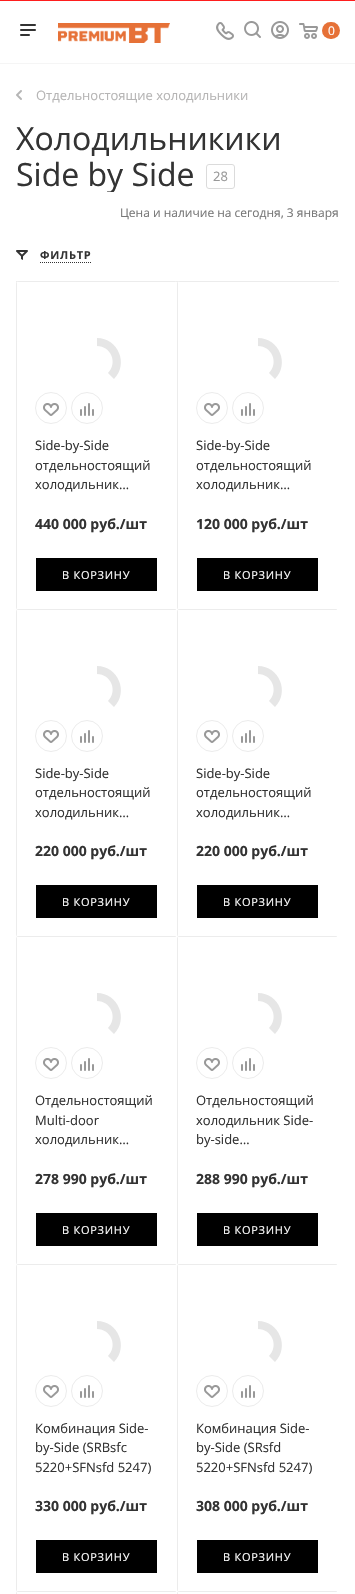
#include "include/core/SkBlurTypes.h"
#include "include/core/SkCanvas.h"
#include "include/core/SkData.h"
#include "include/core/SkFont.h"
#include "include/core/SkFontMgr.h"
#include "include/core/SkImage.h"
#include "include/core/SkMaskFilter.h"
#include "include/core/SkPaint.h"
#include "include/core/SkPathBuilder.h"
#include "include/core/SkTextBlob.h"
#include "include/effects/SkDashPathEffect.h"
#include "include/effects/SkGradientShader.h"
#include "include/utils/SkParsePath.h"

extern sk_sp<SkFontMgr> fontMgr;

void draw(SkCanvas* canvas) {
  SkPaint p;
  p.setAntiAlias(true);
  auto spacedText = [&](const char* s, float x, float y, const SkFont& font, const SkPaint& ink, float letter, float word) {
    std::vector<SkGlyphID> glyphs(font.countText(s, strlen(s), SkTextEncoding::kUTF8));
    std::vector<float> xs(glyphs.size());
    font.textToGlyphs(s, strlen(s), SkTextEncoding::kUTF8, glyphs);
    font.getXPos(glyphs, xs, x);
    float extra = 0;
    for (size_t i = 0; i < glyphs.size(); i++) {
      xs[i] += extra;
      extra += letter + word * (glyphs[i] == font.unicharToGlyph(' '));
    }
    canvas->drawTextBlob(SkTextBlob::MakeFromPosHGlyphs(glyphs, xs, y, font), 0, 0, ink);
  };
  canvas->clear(SK_ColorWHITE);
  p.setColor(SkColorSetRGB(254, 30, 30));
  canvas->drawRect(SkRect::MakeLTRB(0, 0, 355, 1), p);
  p.setColor(SkColorSetRGB(245, 245, 245));
  canvas->drawRect(SkRect::MakeLTRB(0, 63, 355, 64), p);
  canvas->drawImageRect(SkImages::DeferredFromEncodedData(SkData::MakeFromFileName("images/1.png")), SkRect::MakeLTRB(20, 24, 36, 36), SkSamplingOptions());
  canvas->drawImageRect(SkImages::DeferredFromEncodedData(SkData::MakeFromFileName("images/2.png")), SkRect::MakeLTRB(58, 23, 170, 43), SkSamplingOptions());
  canvas->drawImageRect(SkImages::DeferredFromEncodedData(SkData::MakeFromFileName("images/3.png")), SkRect::MakeLTRB(216, 22, 234, 40), SkSamplingOptions());
  canvas->drawImageRect(SkImages::DeferredFromEncodedData(SkData::MakeFromFileName("images/4.png")), SkRect::MakeLTRB(244, 21, 261, 38), SkSamplingOptions());
  canvas->drawImageRect(SkImages::DeferredFromEncodedData(SkData::MakeFromFileName("images/5.png")), SkRect::MakeLTRB(271, 21, 289, 39), SkSamplingOptions());
  canvas->drawImageRect(SkImages::DeferredFromEncodedData(SkData::MakeFromFileName("images/6.png")), SkRect::MakeLTRB(299, 23, 318, 39), SkSamplingOptions());
  p.setColor(SkColorSetRGB(230, 113, 55));
  canvas->drawRoundRect(SkRect::MakeLTRB(322, 22, 340, 39), 8.5f, 8.5f, p);
  canvas->drawImageRect(SkImages::DeferredFromEncodedData(SkData::MakeFromFileName("images/7.png")), SkRect::MakeLTRB(16, 90, 22, 100), SkSamplingOptions());
  p.setStyle(SkPaint::kStroke_Style);
  p.setStrokeWidth(1);
  p.setColor(SkColorSetRGB(219, 219, 219));
  canvas->drawRoundRect(SkRect::MakeLTRB(206.5f, 164.5f, 234.5f, 188.5f), 2.5f, 2.5f, p);
  p.setStyle(SkPaint::kFill_Style);
  p.setColor(SkColorSetRGB(236, 236, 236));
  canvas->drawRect(SkRect::MakeLTRB(16, 281, 339, 282), p);
  canvas->drawImageRect(SkImages::DeferredFromEncodedData(SkData::MakeFromFileName("images/8.png")), SkRect::MakeLTRB(16, 250, 28, 260), SkSamplingOptions());
  p.setStyle(SkPaint::kStroke_Style);
  p.setColor(SkColorSetRGB(51, 51, 51));
  p.setPathEffect(SkDashPathEffect::Make({{1, 1}}, 0));
  canvas->drawPath(SkPathBuilder().moveTo(40, 262.5f).lineTo(92, 262.5f).detach(), p);
  p.setPathEffect(nullptr);
  p.setStyle(SkPaint::kFill_Style);
  p.setColor(SK_ColorWHITE);
  canvas->drawRoundRect(SkRect::MakeLTRB(16, 281, 177, 610), 3, 3, p);
  p.setColor(SkColorSetRGB(236, 236, 236));
  canvas->drawPath(SkPathBuilder().moveTo(17, 282).lineTo(176, 282).cubicTo(176, 281, 175, 281, 174, 281).lineTo(19, 281).cubicTo(17, 281, 16, 282, 16, 284).lineTo(16, 607).cubicTo(16, 609, 17, 610, 19, 610).lineTo(174, 610).cubicTo(175, 610, 176, 610, 176, 609).lineTo(17, 609).close().detach(), p);
  p.setColor(SkColorSetRGB(230, 230, 230));
  canvas->drawPath(SkPathBuilder().moveTo(97, 338).cubicTo(118, 338, 129, 364, 114, 379).lineTo(108, 373).cubicTo(118, 363, 111, 346, 97, 346).close().detach(), p);
  p.setStyle(SkPaint::kStroke_Style);
  p.setColor(SkColorSetRGB(236, 236, 236));
  canvas->drawCircle(51, 408, 15.5f, p);
  canvas->drawImageRect(SkImages::DeferredFromEncodedData(SkData::MakeFromFileName("images/9.png")), SkRect::MakeLTRB(43, 403, 59, 416), SkSamplingOptions());
  canvas->drawCircle(87, 408, 15.5f, p);
  canvas->drawImageRect(SkImages::DeferredFromEncodedData(SkData::MakeFromFileName("images/10.png")), SkRect::MakeLTRB(80, 403, 94, 416), SkSamplingOptions());
  p.setStyle(SkPaint::kFill_Style);
  p.setColor(SK_ColorBLACK);
  canvas->drawRect(SkRect::MakeLTRB(36, 558, 157, 591), p);
  p.setColor(SK_ColorWHITE);
  canvas->drawRoundRect(SkRect::MakeLTRB(177, 281, 338, 610), 3, 3, p);
  p.setColor(SkColorSetRGB(236, 236, 236));
  canvas->drawPath(SkPathBuilder().moveTo(178, 282).lineTo(337, 282).cubicTo(337, 281, 336, 281, 335, 281).lineTo(180, 281).cubicTo(178, 281, 177, 282, 177, 284).lineTo(177, 607).cubicTo(177, 609, 178, 610, 180, 610).lineTo(335, 610).cubicTo(336, 610, 337, 610, 337, 609).lineTo(178, 609).close().detach(), p);
  p.setColor(SkColorSetRGB(230, 230, 230));
  canvas->drawPath(SkPathBuilder().moveTo(258, 338).cubicTo(279, 338, 290, 364, 275, 379).lineTo(269, 373).cubicTo(279, 363, 272, 346, 258, 346).close().detach(), p);
  p.setStyle(SkPaint::kStroke_Style);
  p.setColor(SkColorSetRGB(236, 236, 236));
  canvas->drawCircle(212, 408, 15.5f, p);
  canvas->drawImageRect(SkImages::DeferredFromEncodedData(SkData::MakeFromFileName("images/9.png")), SkRect::MakeLTRB(204, 403, 220, 416), SkSamplingOptions());
  canvas->drawCircle(248, 408, 15.5f, p);
  canvas->drawImageRect(SkImages::DeferredFromEncodedData(SkData::MakeFromFileName("images/10.png")), SkRect::MakeLTRB(241, 403, 255, 416), SkSamplingOptions());
  p.setStyle(SkPaint::kFill_Style);
  p.setColor(SK_ColorBLACK);
  canvas->drawRect(SkRect::MakeLTRB(197, 558, 318, 591), p);
  p.setColor(SK_ColorWHITE);
  canvas->drawRoundRect(SkRect::MakeLTRB(16, 609, 177, 937), 3, 3, p);
  p.setColor(SkColorSetRGB(236, 236, 236));
  canvas->drawPath(SkPathBuilder().moveTo(17, 610).lineTo(176, 610).cubicTo(176, 609, 175, 609, 174, 609).lineTo(19, 609).cubicTo(17, 609, 16, 610, 16, 612).lineTo(16, 934).cubicTo(16, 936, 17, 937, 19, 937).lineTo(174, 937).cubicTo(175, 937, 176, 937, 176, 936).lineTo(17, 936).close().detach(), p);
  p.setColor(SkColorSetRGB(230, 230, 230));
  canvas->drawPath(SkPathBuilder().moveTo(97, 666).cubicTo(118, 666, 129, 692, 114, 707).lineTo(108, 701).cubicTo(118, 691, 111, 674, 97, 674).close().detach(), p);
  p.setStyle(SkPaint::kStroke_Style);
  p.setColor(SkColorSetRGB(236, 236, 236));
  canvas->drawCircle(51, 736, 15.5f, p);
  canvas->drawImageRect(SkImages::DeferredFromEncodedData(SkData::MakeFromFileName("images/9.png")), SkRect::MakeLTRB(43, 730, 59, 743), SkSamplingOptions());
  canvas->drawCircle(87, 736, 15.5f, p);
  canvas->drawImageRect(SkImages::DeferredFromEncodedData(SkData::MakeFromFileName("images/10.png")), SkRect::MakeLTRB(80, 730, 94, 743), SkSamplingOptions());
  p.setStyle(SkPaint::kFill_Style);
  p.setColor(SK_ColorBLACK);
  canvas->drawRect(SkRect::MakeLTRB(36, 885, 157, 918), p);
  p.setColor(SK_ColorWHITE);
  canvas->drawRoundRect(SkRect::MakeLTRB(177, 609, 338, 937), 3, 3, p);
  p.setColor(SkColorSetRGB(236, 236, 236));
  canvas->drawPath(SkPathBuilder().moveTo(178, 610).lineTo(337, 610).cubicTo(337, 609, 336, 609, 335, 609).lineTo(180, 609).cubicTo(178, 609, 177, 610, 177, 612).lineTo(177, 934).cubicTo(177, 936, 178, 937, 180, 937).lineTo(335, 937).cubicTo(336, 937, 337, 937, 337, 936).lineTo(178, 936).close().detach(), p);
  p.setColor(SkColorSetRGB(230, 230, 230));
  canvas->drawPath(SkPathBuilder().moveTo(258, 666).cubicTo(279, 666, 290, 692, 275, 707).lineTo(269, 701).cubicTo(279, 691, 272, 674, 258, 674).close().detach(), p);
  p.setStyle(SkPaint::kStroke_Style);
  p.setColor(SkColorSetRGB(236, 236, 236));
  canvas->drawCircle(212, 736, 15.5f, p);
  canvas->drawImageRect(SkImages::DeferredFromEncodedData(SkData::MakeFromFileName("images/9.png")), SkRect::MakeLTRB(204, 730, 220, 743), SkSamplingOptions());
  canvas->drawCircle(248, 736, 15.5f, p);
  canvas->drawImageRect(SkImages::DeferredFromEncodedData(SkData::MakeFromFileName("images/10.png")), SkRect::MakeLTRB(241, 730, 255, 743), SkSamplingOptions());
  p.setStyle(SkPaint::kFill_Style);
  p.setColor(SK_ColorBLACK);
  canvas->drawRect(SkRect::MakeLTRB(197, 885, 318, 918), p);
  p.setColor(SK_ColorWHITE);
  canvas->drawRoundRect(SkRect::MakeLTRB(16, 936, 177, 1265), 3, 3, p);
  p.setColor(SkColorSetRGB(236, 236, 236));
  canvas->drawPath(SkPathBuilder().moveTo(17, 937).lineTo(176, 937).cubicTo(176, 936, 175, 936, 174, 936).lineTo(19, 936).cubicTo(17, 936, 16, 937, 16, 939).lineTo(16, 1262).cubicTo(16, 1264, 17, 1265, 19, 1265).lineTo(174, 1265).cubicTo(175, 1265, 176, 1265, 176, 1264).lineTo(17, 1264).close().detach(), p);
  p.setColor(SkColorSetRGB(230, 230, 230));
  canvas->drawPath(SkPathBuilder().moveTo(97, 993).cubicTo(118, 993, 129, 1019, 114, 1034).lineTo(108, 1028).cubicTo(118, 1018, 111, 1001, 97, 1001).close().detach(), p);
  p.setStyle(SkPaint::kStroke_Style);
  p.setColor(SkColorSetRGB(236, 236, 236));
  canvas->drawCircle(51, 1063, 15.5f, p);
  canvas->drawImageRect(SkImages::DeferredFromEncodedData(SkData::MakeFromFileName("images/9.png")), SkRect::MakeLTRB(43, 1058, 59, 1071), SkSamplingOptions());
  canvas->drawCircle(87, 1063, 15.5f, p);
  canvas->drawImageRect(SkImages::DeferredFromEncodedData(SkData::MakeFromFileName("images/10.png")), SkRect::MakeLTRB(80, 1058, 94, 1071), SkSamplingOptions());
  p.setStyle(SkPaint::kFill_Style);
  p.setColor(SK_ColorBLACK);
  canvas->drawRect(SkRect::MakeLTRB(36, 1213, 157, 1246), p);
  p.setColor(SK_ColorWHITE);
  canvas->drawRoundRect(SkRect::MakeLTRB(177, 936, 338, 1265), 3, 3, p);
  p.setColor(SkColorSetRGB(236, 236, 236));
  canvas->drawPath(SkPathBuilder().moveTo(178, 937).lineTo(337, 937).cubicTo(337, 936, 336, 936, 335, 936).lineTo(180, 936).cubicTo(178, 936, 177, 937, 177, 939).lineTo(177, 1262).cubicTo(177, 1264, 178, 1265, 180, 1265).lineTo(335, 1265).cubicTo(336, 1265, 337, 1265, 337, 1264).lineTo(178, 1264).close().detach(), p);
  p.setColor(SkColorSetRGB(230, 230, 230));
  canvas->drawPath(SkPathBuilder().moveTo(258, 993).cubicTo(279, 993, 290, 1019, 275, 1034).lineTo(269, 1028).cubicTo(279, 1018, 272, 1001, 258, 1001).close().detach(), p);
  p.setStyle(SkPaint::kStroke_Style);
  p.setColor(SkColorSetRGB(236, 236, 236));
  canvas->drawCircle(212, 1063, 15.5f, p);
  canvas->drawImageRect(SkImages::DeferredFromEncodedData(SkData::MakeFromFileName("images/9.png")), SkRect::MakeLTRB(204, 1058, 220, 1071), SkSamplingOptions());
  canvas->drawCircle(248, 1063, 15.5f, p);
  canvas->drawImageRect(SkImages::DeferredFromEncodedData(SkData::MakeFromFileName("images/10.png")), SkRect::MakeLTRB(241, 1058, 255, 1071), SkSamplingOptions());
  p.setStyle(SkPaint::kFill_Style);
  p.setColor(SK_ColorBLACK);
  canvas->drawRect(SkRect::MakeLTRB(197, 1213, 318, 1246), p);
  p.setColor(SK_ColorWHITE);
  canvas->drawRoundRect(SkRect::MakeLTRB(16, 1264, 177, 1592), 3, 3, p);
  p.setColor(SkColorSetRGB(236, 236, 236));
  canvas->drawPath(SkPathBuilder().moveTo(17, 1265).lineTo(176, 1265).cubicTo(176, 1264, 175, 1264, 174, 1264).lineTo(19, 1264).cubicTo(17, 1264, 16, 1265, 16, 1267).lineTo(16, 1589).cubicTo(16, 1591, 17, 1592, 19, 1592).lineTo(174, 1592).cubicTo(175, 1592, 176, 1592, 176, 1591).lineTo(17, 1591).close().detach(), p);
  p.setColor(SkColorSetRGB(230, 230, 230));
  canvas->drawPath(SkPathBuilder().moveTo(97, 1321).cubicTo(118, 1321, 129, 1347, 114, 1362).lineTo(108, 1356).cubicTo(118, 1346, 111, 1329, 97, 1329).close().detach(), p);
  p.setStyle(SkPaint::kStroke_Style);
  p.setColor(SkColorSetRGB(236, 236, 236));
  canvas->drawCircle(51, 1391, 15.5f, p);
  canvas->drawImageRect(SkImages::DeferredFromEncodedData(SkData::MakeFromFileName("images/9.png")), SkRect::MakeLTRB(43, 1385, 59, 1398), SkSamplingOptions());
  canvas->drawCircle(87, 1391, 15.5f, p);
  canvas->drawImageRect(SkImages::DeferredFromEncodedData(SkData::MakeFromFileName("images/10.png")), SkRect::MakeLTRB(80, 1385, 94, 1398), SkSamplingOptions());
  p.setStyle(SkPaint::kFill_Style);
  p.setColor(SK_ColorBLACK);
  canvas->drawRect(SkRect::MakeLTRB(36, 1540, 157, 1573), p);
  p.setColor(SK_ColorWHITE);
  canvas->drawRoundRect(SkRect::MakeLTRB(177, 1264, 338, 1592), 3, 3, p);
  p.setColor(SkColorSetRGB(236, 236, 236));
  canvas->drawPath(SkPathBuilder().moveTo(178, 1265).lineTo(337, 1265).cubicTo(337, 1264, 336, 1264, 335, 1264).lineTo(180, 1264).cubicTo(178, 1264, 177, 1265, 177, 1267).lineTo(177, 1589).cubicTo(177, 1591, 178, 1592, 180, 1592).lineTo(335, 1592).cubicTo(336, 1592, 337, 1592, 337, 1591).lineTo(178, 1591).close().detach(), p);
  p.setColor(SkColorSetRGB(230, 230, 230));
  canvas->drawPath(SkPathBuilder().moveTo(258, 1321).cubicTo(279, 1321, 290, 1347, 275, 1362).lineTo(269, 1356).cubicTo(279, 1346, 272, 1329, 258, 1329).close().detach(), p);
  p.setStyle(SkPaint::kStroke_Style);
  p.setColor(SkColorSetRGB(236, 236, 236));
  canvas->drawCircle(212, 1391, 15.5f, p);
  canvas->drawImageRect(SkImages::DeferredFromEncodedData(SkData::MakeFromFileName("images/9.png")), SkRect::MakeLTRB(204, 1385, 220, 1398), SkSamplingOptions());
  canvas->drawCircle(248, 1391, 15.5f, p);
  canvas->drawImageRect(SkImages::DeferredFromEncodedData(SkData::MakeFromFileName("images/10.png")), SkRect::MakeLTRB(241, 1385, 255, 1398), SkSamplingOptions());
  p.setStyle(SkPaint::kFill_Style);
  p.setColor(SK_ColorBLACK);
  canvas->drawRect(SkRect::MakeLTRB(197, 1540, 318, 1573), p);
  p.setColor(SK_ColorWHITE);
  canvas->drawRoundRect(SkRect::MakeLTRB(16, 1591, 177, 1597), 3, 3, p);
  p.setColor(SkColorSetRGB(236, 236, 236));
  canvas->drawPath(SkPathBuilder().moveTo(17, 1592).lineTo(176, 1592).cubicTo(176, 1591, 175, 1591, 174, 1591).lineTo(19, 1591).cubicTo(17, 1591, 16, 1592, 16, 1594).lineTo(16, 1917).cubicTo(16, 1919, 17, 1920, 19, 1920).lineTo(174, 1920).cubicTo(175, 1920, 176, 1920, 176, 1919).lineTo(17, 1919).close().detach(), p);
  p.setColor(SK_ColorWHITE);
  canvas->drawRoundRect(SkRect::MakeLTRB(177, 1591, 338, 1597), 3, 3, p);
  p.setColor(SkColorSetRGB(236, 236, 236));
  canvas->drawPath(SkPathBuilder().moveTo(178, 1592).lineTo(337, 1592).cubicTo(337, 1591, 336, 1591, 335, 1591).lineTo(180, 1591).cubicTo(178, 1591, 177, 1592, 177, 1594).lineTo(177, 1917).cubicTo(177, 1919, 178, 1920, 180, 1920).lineTo(335, 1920).cubicTo(336, 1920, 337, 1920, 337, 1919).lineTo(178, 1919).close().detach(), p);
  SkFont font1(fontMgr->matchFamilyStyle("Open Sans", SkFontStyle::Normal()), 12);
  font1.setSubpixel(true);
  p.setColor(SK_ColorWHITE);
  canvas->drawString("0", 328, 35, font1, p);
  SkFont font2(fontMgr->matchFamilyStyle("Open Sans", SkFontStyle::Normal()), 13);
  font2.setSubpixel(true);
  p.setColor(SkColorSetRGB(182, 181, 181));
  canvas->drawString("Отдельностоящие холодильники", 36, 100, font2, p);
  SkFont font3(fontMgr->matchFamilyStyle("Open Sans", SkFontStyle::Normal()), 32);
  font3.setSubpixel(true);
  p.setColor(SkColorSetRGB(51, 51, 51));
  canvas->drawString("Холодильникики", 16, 150, font3, p);
  canvas->save();
  canvas->clipRect(SkRect::MakeLTRB(16, 120, 339, 192));
  canvas->drawString("Side by Side", 16, 186, font3, p);
  canvas->restore();
  p.setColor(SkColorSetRGB(153, 153, 153));
  canvas->drawString("28", 213, 181, font2, p);
  p.setColor(SkColorSetRGB(119, 119, 119));
  canvas->drawString("Цена и наличие на сегодня, 3 января", 120, 217, font1, p);
  SkFont font4(fontMgr->matchFamilyStyle("Open Sans", SkFontStyle::Bold()), 11);
  font4.setSubpixel(true);
  p.setColor(SkColorSetRGB(51, 51, 51));
  spacedText("ФИЛЬТР", 40, 259, font4, p, 0.75f, 0);
  canvas->drawString("Side-by-Side", 35, 450, font2, p);
  canvas->drawString("отдельностоящий", 35, 470, font2, p);
  canvas->drawString("холодильник…", 35, 489, font2, p);
  SkFont font5(fontMgr->matchFamilyStyle("Open Sans", SkFontStyle::Bold()), 14);
  font5.setSubpixel(true);
  canvas->drawString("440 000 руб./шт", 35, 529, font5, p);
  SkFont font6(fontMgr->matchFamilyStyle("Open Sans", SkFontStyle::Normal()), 11);
  font6.setSubpixel(true);
  p.setColor(SK_ColorWHITE);
  spacedText("В КОРЗИНУ", 62, 579, font6, p, 0.75f, 0);
  p.setColor(SkColorSetRGB(51, 51, 51));
  canvas->drawString("Side-by-Side", 196, 450, font2, p);
  canvas->drawString("отдельностоящий", 196, 470, font2, p);
  canvas->drawString("холодильник…", 196, 489, font2, p);
  canvas->drawString("120 000 руб./шт", 196, 529, font5, p);
  p.setColor(SK_ColorWHITE);
  spacedText("В КОРЗИНУ", 223, 579, font6, p, 0.75f, 0);
  p.setColor(SkColorSetRGB(51, 51, 51));
  canvas->drawString("Side-by-Side", 35, 778, font2, p);
  canvas->drawString("отдельностоящий", 35, 797, font2, p);
  canvas->drawString("холодильник…", 35, 817, font2, p);
  canvas->drawString("220 000 руб./шт", 35, 856, font5, p);
  p.setColor(SK_ColorWHITE);
  spacedText("В КОРЗИНУ", 62, 906, font6, p, 0.75f, 0);
  p.setColor(SkColorSetRGB(51, 51, 51));
  canvas->drawString("Side-by-Side", 196, 778, font2, p);
  canvas->drawString("отдельностоящий", 196, 797, font2, p);
  canvas->drawString("холодильник…", 196, 817, font2, p);
  canvas->drawString("220 000 руб./шт", 196, 856, font5, p);
  p.setColor(SK_ColorWHITE);
  spacedText("В КОРЗИНУ", 223, 906, font6, p, 0.75f, 0);
  p.setColor(SkColorSetRGB(51, 51, 51));
  canvas->drawString("Отдельностоящий", 35, 1105, font2, p);
  canvas->drawString("Multi-door", 35, 1125, font2, p);
  canvas->drawString("холодильник…", 35, 1144, font2, p);
  canvas->drawString("278 990 руб./шт", 35, 1184, font5, p);
  p.setColor(SK_ColorWHITE);
  spacedText("В КОРЗИНУ", 62, 1234, font6, p, 0.75f, 0);
  p.setColor(SkColorSetRGB(51, 51, 51));
  canvas->drawString("Отдельностоящий", 196, 1105, font2, p);
  canvas->drawString("холодильник Side-", 196, 1125, font2, p);
  canvas->drawString("by-side…", 196, 1144, font2, p);
  canvas->drawString("288 990 руб./шт", 196, 1184, font5, p);
  p.setColor(SK_ColorWHITE);
  spacedText("В КОРЗИНУ", 223, 1234, font6, p, 0.75f, 0);
  p.setColor(SkColorSetRGB(51, 51, 51));
  canvas->drawString("Комбинация Side-", 35, 1433, font2, p);
  canvas->drawString("by-Side (SRBsfc", 35, 1452, font2, p);
  canvas->drawString("5220+SFNsfd 5247)", 35, 1472, font2, p);
  canvas->drawString("330 000 руб./шт", 35, 1511, font5, p);
  p.setColor(SK_ColorWHITE);
  spacedText("В КОРЗИНУ", 62, 1561, font6, p, 0.75f, 0);
  p.setColor(SkColorSetRGB(51, 51, 51));
  canvas->drawString("Комбинация Side-", 196, 1433, font2, p);
  canvas->drawString("by-Side (SRsfd", 196, 1452, font2, p);
  canvas->drawString("5220+SFNsfd 5247)", 196, 1472, font2, p);
  canvas->drawString("308 000 руб./шт", 196, 1511, font5, p);
  p.setColor(SK_ColorWHITE);
  spacedText("В КОРЗИНУ", 223, 1561, font6, p, 0.75f, 0);
}
